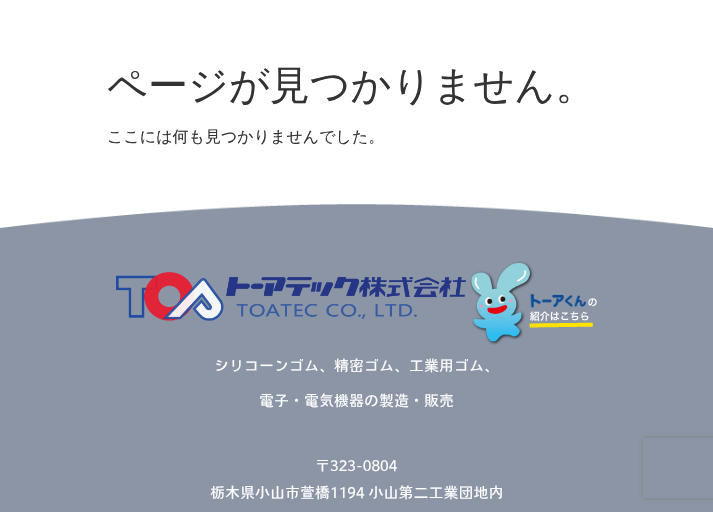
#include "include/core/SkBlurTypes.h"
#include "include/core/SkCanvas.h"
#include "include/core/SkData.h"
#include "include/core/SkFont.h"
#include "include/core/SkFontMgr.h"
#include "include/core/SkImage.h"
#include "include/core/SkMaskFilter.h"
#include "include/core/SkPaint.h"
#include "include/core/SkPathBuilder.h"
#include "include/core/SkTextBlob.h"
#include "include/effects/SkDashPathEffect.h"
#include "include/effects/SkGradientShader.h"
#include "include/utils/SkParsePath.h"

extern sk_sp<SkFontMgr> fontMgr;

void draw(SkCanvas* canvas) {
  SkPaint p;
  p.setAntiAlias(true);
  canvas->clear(SK_ColorWHITE);
  canvas->drawImageRect(SkImages::DeferredFromEncodedData(SkData::MakeFromFileName("images/1.png")), SkRect::MakeLTRB(0, 204, 713, 512), SkSamplingOptions());
  canvas->drawImageRect(SkImages::DeferredFromEncodedData(SkData::MakeFromFileName("images/2.png")), SkRect::MakeLTRB(116, 272, 466, 321), SkSamplingOptions());
  canvas->drawImageRect(SkImages::DeferredFromEncodedData(SkData::MakeFromFileName("images/3.png")), SkRect::MakeLTRB(470, 261, 597, 345), SkSamplingOptions());
  canvas->save();
  canvas->clipPath(SkPathBuilder(SkPathFillType::kEvenOdd).moveTo(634, 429).lineTo(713, 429).lineTo(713, 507).lineTo(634, 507).close().moveTo(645, 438).lineTo(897, 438).cubicTo(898, 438, 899, 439, 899, 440).lineTo(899, 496).cubicTo(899, 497, 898, 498, 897, 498).lineTo(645, 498).cubicTo(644, 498, 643, 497, 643, 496).lineTo(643, 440).cubicTo(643, 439, 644, 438, 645, 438).close().detach(), true);
  p.setColor(SkColorSetRGB(128, 128, 128));
  p.setMaskFilter(SkMaskFilter::MakeBlur(kNormal_SkBlurStyle, 2.5f));
  canvas->drawRoundRect(SkRect::MakeLTRB(643, 438, 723, 498), 2, 2, p);
  p.setMaskFilter(nullptr);
  canvas->restore();
  SkFont font1(fontMgr->matchFamilyStyle("WenQuanYi Zen Hei", SkFontStyle(500, SkFontStyle::kNormal_Width, SkFontStyle::kUpright_Slant)), 40);
  font1.setSubpixel(true);
  p.setColor(SkColorSetRGB(51, 51, 51));
  canvas->drawString("ページが見つかりません。", 107, 99, font1, p);
  SkFont font2(fontMgr->matchFamilyStyle("WenQuanYi Zen Hei", SkFontStyle(500, SkFontStyle::kNormal_Width, SkFontStyle::kUpright_Slant)), 16);
  font2.setSubpixel(true);
  canvas->drawString("ここには何も見つかりませんでした。", 107, 142, font2, p);
  SkFont font3(fontMgr->matchFamilyStyle("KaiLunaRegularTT", SkFontStyle::Normal()), 15);
  font3.setSubpixel(true);
  p.setColor(SK_ColorWHITE);
  canvas->drawString("シリコーンゴム、精密ゴム、工業用ゴム、", 214, 371, font3, p);
  canvas->drawString("電子・電気機器の製造・販売", 259, 406, font3, p);
  canvas->drawString("〒323-0804", 315, 471, font3, p);
  canvas->drawString("栃木県小山市萱橋1194 小山第二工業団地内", 210, 498, font3, p);
}
